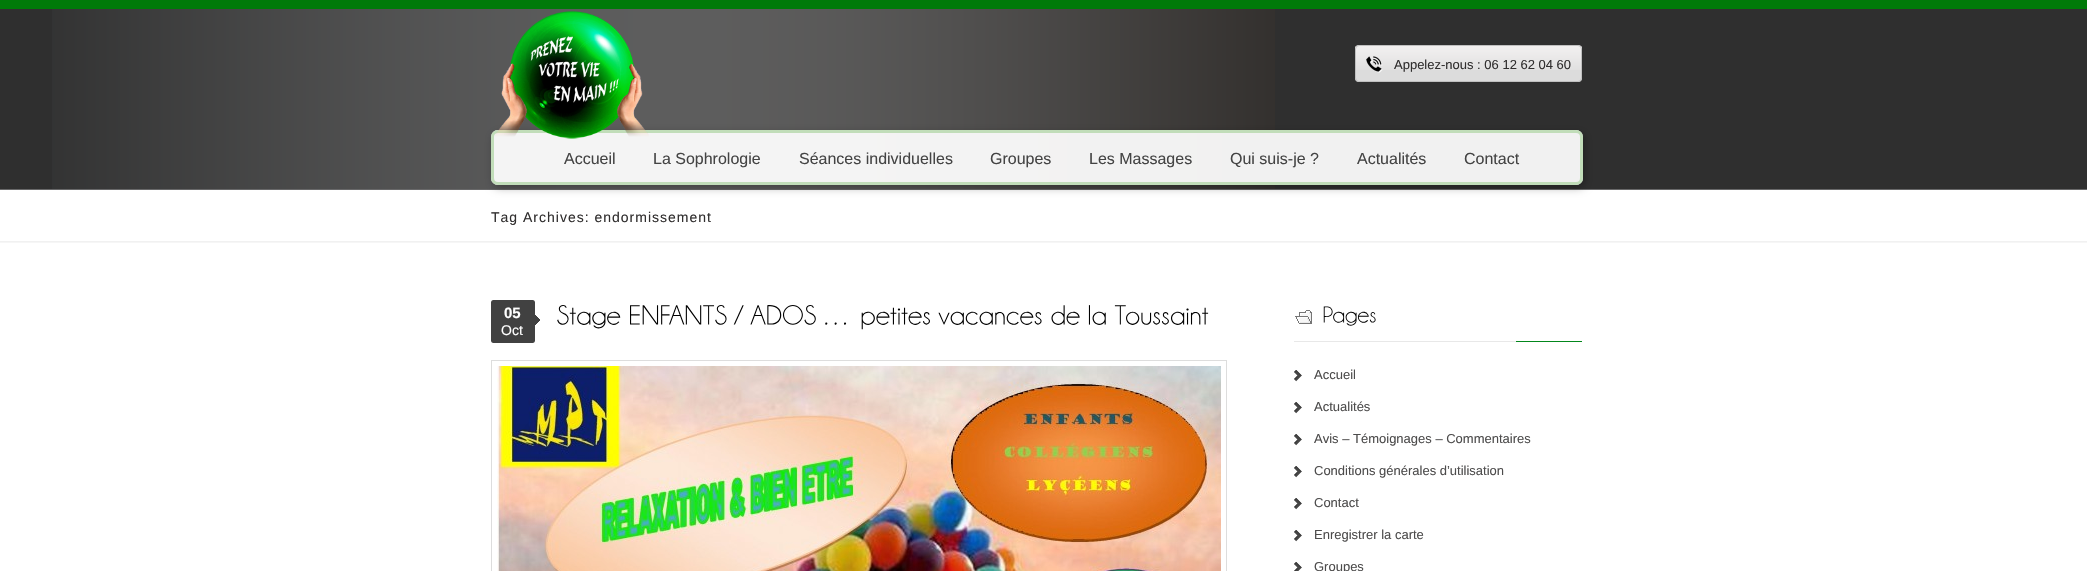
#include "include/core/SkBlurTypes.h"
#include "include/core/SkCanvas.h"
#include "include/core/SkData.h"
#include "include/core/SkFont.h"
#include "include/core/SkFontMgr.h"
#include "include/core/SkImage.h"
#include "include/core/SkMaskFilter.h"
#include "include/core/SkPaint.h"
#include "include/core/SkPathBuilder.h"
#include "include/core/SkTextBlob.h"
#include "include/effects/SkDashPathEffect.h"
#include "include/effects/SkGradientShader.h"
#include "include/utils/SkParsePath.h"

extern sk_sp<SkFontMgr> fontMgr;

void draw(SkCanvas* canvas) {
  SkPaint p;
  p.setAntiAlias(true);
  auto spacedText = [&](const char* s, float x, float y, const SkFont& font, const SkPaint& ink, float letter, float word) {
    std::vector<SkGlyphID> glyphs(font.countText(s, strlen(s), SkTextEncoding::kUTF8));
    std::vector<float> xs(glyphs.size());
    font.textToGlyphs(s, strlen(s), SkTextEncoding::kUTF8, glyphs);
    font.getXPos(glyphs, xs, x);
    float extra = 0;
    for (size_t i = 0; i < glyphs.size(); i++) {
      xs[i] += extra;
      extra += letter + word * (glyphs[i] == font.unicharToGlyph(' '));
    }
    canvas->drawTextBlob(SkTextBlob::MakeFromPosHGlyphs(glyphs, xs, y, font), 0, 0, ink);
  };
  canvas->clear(SK_ColorWHITE);
  p.setColor(SkColorSetRGB(47, 47, 47));
  canvas->drawRect(SkRect::MakeLTRB(0, 9, 2087, 189), p);
  canvas->drawImageRect(SkImages::DeferredFromEncodedData(SkData::MakeFromFileName("images/1.png")), SkRect::MakeLTRB(52, 9, 1275, 189), SkSamplingOptions());
  p.setColor(SkColorSetRGB(0, 122, 9));
  canvas->drawRect(SkRect::MakeLTRB(0, 0, 2087, 9), p);
  p.setColor(SkColorSetRGB(104, 104, 105));
  canvas->drawRect(SkRect::MakeLTRB(0, 189, 2087, 190), p);
  canvas->save();
  canvas->clipPath(SkPathBuilder(SkPathFillType::kEvenOdd).moveTo(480, 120).lineTo(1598, 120).lineTo(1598, 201).lineTo(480, 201).close().moveTo(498, 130).lineTo(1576, 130).cubicTo(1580, 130, 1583, 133, 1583, 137).lineTo(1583, 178).cubicTo(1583, 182, 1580, 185, 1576, 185).lineTo(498, 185).cubicTo(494, 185, 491, 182, 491, 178).lineTo(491, 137).cubicTo(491, 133, 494, 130, 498, 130).close().detach(), true);
  p.setColor(SkColorSetARGB(77, 0, 0, 0));
  p.setMaskFilter(SkMaskFilter::MakeBlur(kNormal_SkBlurStyle, 4));
  canvas->drawRoundRect(SkRect::MakeLTRB(493, 133, 1585, 188), 7, 7, p);
  p.setMaskFilter(nullptr);
  canvas->restore();
  canvas->drawImageRect(SkImages::DeferredFromEncodedData(SkData::MakeFromFileName("images/5.png")), SkRect::MakeLTRB(491, 130, 1583, 185), SkSamplingOptions());
  p.setStyle(SkPaint::kStroke_Style);
  p.setStrokeWidth(3);
  p.setColor(SkColorSetRGB(193, 221, 185));
  canvas->drawRoundRect(SkRect::MakeLTRB(492.5f, 131.5f, 1581.5f, 183.5f), 5.5f, 5.5f, p);
  canvas->drawImageRect(SkImages::DeferredFromEncodedData(SkData::MakeFromFileName("images/2.png")), SkRect::MakeLTRB(495, 11, 649, 139), SkSamplingOptions());
  p.setStyle(SkPaint::kFill_Style);
  p.setColor(SkColorSetRGB(220, 220, 220));
  canvas->drawRoundRect(SkRect::MakeLTRB(1355, 45, 1582, 82), 4, 4, p);
  canvas->drawImageRect(SkImages::DeferredFromEncodedData(SkData::MakeFromFileName("images/3.png")), SkRect::MakeLTRB(1355, 46, 1582, 70), SkSamplingOptions());
  p.setStyle(SkPaint::kStroke_Style);
  p.setStrokeWidth(1);
  p.setColor(SkColorSetRGB(192, 192, 192));
  canvas->drawRoundRect(SkRect::MakeLTRB(1355.5f, 45.5f, 1581.5f, 81.5f), 3.5f, 3.5f, p);
  canvas->drawImageRect(SkImages::DeferredFromEncodedData(SkData::MakeFromFileName("images/4.png")), SkRect::MakeLTRB(1366, 56, 1383, 73), SkSamplingOptions());
  canvas->drawImageRect(SkImages::DeferredFromEncodedData(SkData::MakeFromFileName("images/6.png")), SkRect::MakeLTRB(0, 241, 2087, 243), SkSamplingOptions());
  canvas->drawImageRect(SkImages::DeferredFromEncodedData(SkData::MakeFromFileName("images/7.png")), SkRect::MakeLTRB(491, 300, 540, 343), SkSamplingOptions());
  canvas->drawImageRect(SkImages::DeferredFromEncodedData(SkData::MakeFromFileName("images/8.png")), SkRect::MakeLTRB(557, 305, 621, 329), SkSamplingOptions());
  canvas->drawImageRect(SkImages::DeferredFromEncodedData(SkData::MakeFromFileName("images/9.png")), SkRect::MakeLTRB(630, 305, 727, 325), SkSamplingOptions());
  canvas->drawImageRect(SkImages::DeferredFromEncodedData(SkData::MakeFromFileName("images/10.png")), SkRect::MakeLTRB(733, 305, 744, 325), SkSamplingOptions());
  canvas->drawImageRect(SkImages::DeferredFromEncodedData(SkData::MakeFromFileName("images/11.png")), SkRect::MakeLTRB(750, 305, 816, 325), SkSamplingOptions());
  canvas->drawImageRect(SkImages::DeferredFromEncodedData(SkData::MakeFromFileName("images/12.png")), SkRect::MakeLTRB(825, 322, 847, 325), SkSamplingOptions());
  canvas->drawImageRect(SkImages::DeferredFromEncodedData(SkData::MakeFromFileName("images/13.png")), SkRect::MakeLTRB(861, 307, 930, 330), SkSamplingOptions());
  canvas->drawImageRect(SkImages::DeferredFromEncodedData(SkData::MakeFromFileName("images/14.png")), SkRect::MakeLTRB(938, 311, 1042, 325), SkSamplingOptions());
  canvas->drawImageRect(SkImages::DeferredFromEncodedData(SkData::MakeFromFileName("images/15.png")), SkRect::MakeLTRB(1051, 305, 1080, 325), SkSamplingOptions());
  canvas->drawImageRect(SkImages::DeferredFromEncodedData(SkData::MakeFromFileName("images/16.png")), SkRect::MakeLTRB(1088, 305, 1106, 325), SkSamplingOptions());
  canvas->drawImageRect(SkImages::DeferredFromEncodedData(SkData::MakeFromFileName("images/17.png")), SkRect::MakeLTRB(1114, 305, 1209, 325), SkSamplingOptions());
  p.setColor(SkColorSetRGB(221, 221, 221));
  canvas->drawRect(SkRect::MakeLTRB(491.5f, 360.5f, 1226.5f, 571.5f), p);
  canvas->drawImageRect(SkImages::DeferredFromEncodedData(SkData::MakeFromFileName("images/18.png")), SkRect::MakeLTRB(497, 366, 1221, 571), SkSamplingOptions());
  canvas->drawImageRect(SkImages::DeferredFromEncodedData(SkData::MakeFromFileName("images/19.png")), SkRect::MakeLTRB(1294, 310, 1582, 342), SkSamplingOptions());
  canvas->drawImageRect(SkImages::DeferredFromEncodedData(SkData::MakeFromFileName("images/20.png")), SkRect::MakeLTRB(1323, 306, 1376, 326), SkSamplingOptions());
  canvas->drawImageRect(SkImages::DeferredFromEncodedData(SkData::MakeFromFileName("images/21.png")), SkRect::MakeLTRB(1294, 370, 1302, 382), SkSamplingOptions());
  canvas->drawImageRect(SkImages::DeferredFromEncodedData(SkData::MakeFromFileName("images/21.png")), SkRect::MakeLTRB(1294, 402, 1302, 414), SkSamplingOptions());
  canvas->drawImageRect(SkImages::DeferredFromEncodedData(SkData::MakeFromFileName("images/21.png")), SkRect::MakeLTRB(1294, 434, 1302, 446), SkSamplingOptions());
  canvas->drawImageRect(SkImages::DeferredFromEncodedData(SkData::MakeFromFileName("images/21.png")), SkRect::MakeLTRB(1294, 466, 1302, 478), SkSamplingOptions());
  canvas->drawImageRect(SkImages::DeferredFromEncodedData(SkData::MakeFromFileName("images/21.png")), SkRect::MakeLTRB(1294, 498, 1302, 510), SkSamplingOptions());
  canvas->drawImageRect(SkImages::DeferredFromEncodedData(SkData::MakeFromFileName("images/21.png")), SkRect::MakeLTRB(1294, 530, 1302, 542), SkSamplingOptions());
  canvas->drawImageRect(SkImages::DeferredFromEncodedData(SkData::MakeFromFileName("images/22.png")), SkRect::MakeLTRB(1294, 562, 1302, 571), SkSamplingOptions());
  SkFont font1(fontMgr->matchFamilyStyle("Liberation Sans", SkFontStyle::Normal()), 13);
  font1.setSubpixel(true);
  p.setStyle(SkPaint::kFill_Style);
  p.setColor(SkColorSetRGB(49, 47, 47));
  canvas->drawString("Appelez-nous : 06 12 62 04 60", 1394, 69, font1, p);
  SkFont font2(fontMgr->matchFamilyStyle("Liberation Sans", SkFontStyle::Normal()), 16);
  font2.setSubpixel(true);
  p.setColor(SkColorSetRGB(68, 68, 68));
  canvas->drawString("Accueil", 564, 164, font2, p);
  canvas->drawString("La Sophrologie", 653, 164, font2, p);
  canvas->drawString("Séances individuelles", 799, 164, font2, p);
  canvas->drawString("Groupes", 990, 164, font2, p);
  canvas->drawString("Les Massages", 1089, 164, font2, p);
  canvas->drawString("Qui suis-je ?", 1230, 164, font2, p);
  canvas->drawString("Actualités", 1357, 164, font2, p);
  canvas->drawString("Contact", 1464, 164, font2, p);
  SkFont font3(fontMgr->matchFamilyStyle("Liberation Sans", SkFontStyle::Normal()), 14);
  font3.setSubpixel(true);
  p.setColor(SkColorSetRGB(49, 47, 47));
  spacedText("Tag Archives: endormissement", 491, 222, font3, p, 1, 0);
  SkFont font4(fontMgr->matchFamilyStyle("Liberation Sans", SkFontStyle::Bold()), 15);
  font4.setSubpixel(true);
  p.setColor(SK_ColorWHITE);
  canvas->drawString("05", 504, 318, font4, p);
  canvas->drawString("Oct", 501, 335, font3, p);
  p.setColor(SkColorSetRGB(77, 76, 76));
  canvas->drawString("Accueil", 1314, 379, font1, p);
  canvas->drawString("Actualités", 1314, 411, font1, p);
  canvas->drawString("Avis – Témoignages – Commentaires", 1314, 443, font1, p);
  canvas->drawString("Conditions générales d’utilisation", 1314, 475, font1, p);
  canvas->drawString("Contact", 1314, 507, font1, p);
  canvas->drawString("Enregistrer la carte", 1314, 539, font1, p);
  canvas->drawString("Groupes", 1314, 571, font1, p);
}
